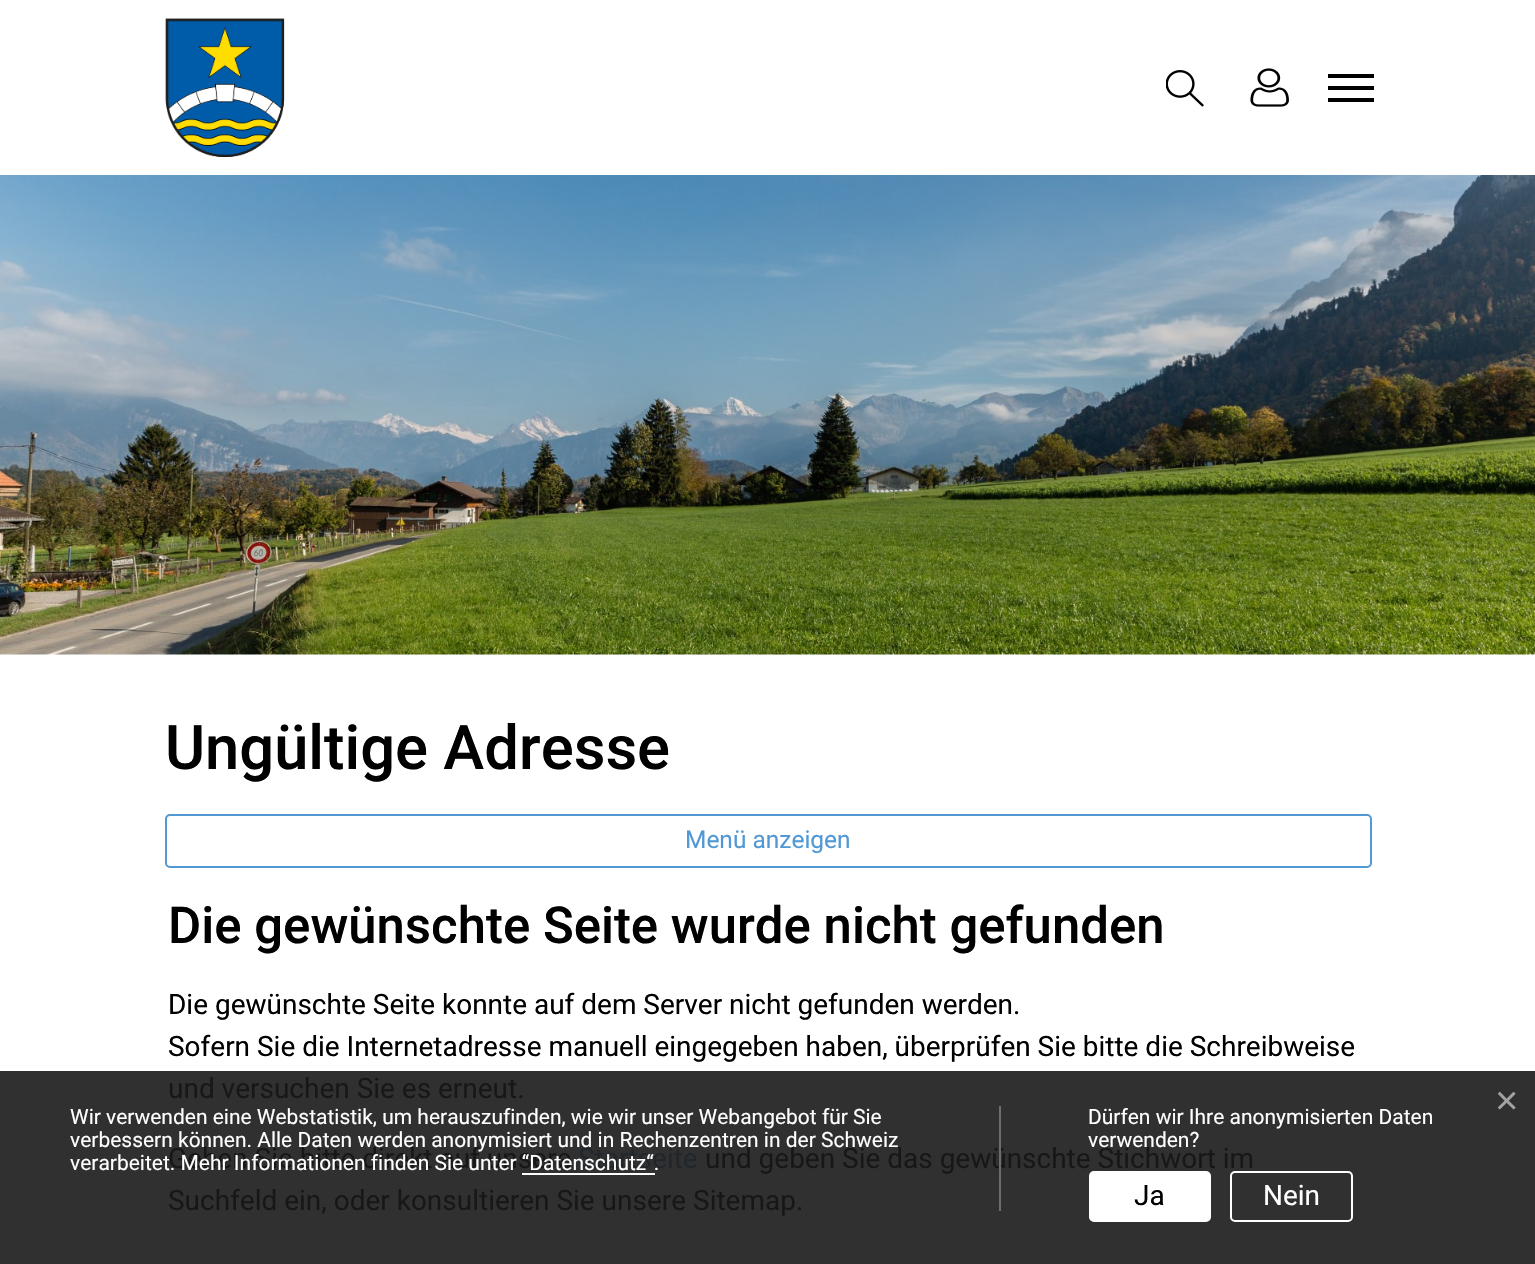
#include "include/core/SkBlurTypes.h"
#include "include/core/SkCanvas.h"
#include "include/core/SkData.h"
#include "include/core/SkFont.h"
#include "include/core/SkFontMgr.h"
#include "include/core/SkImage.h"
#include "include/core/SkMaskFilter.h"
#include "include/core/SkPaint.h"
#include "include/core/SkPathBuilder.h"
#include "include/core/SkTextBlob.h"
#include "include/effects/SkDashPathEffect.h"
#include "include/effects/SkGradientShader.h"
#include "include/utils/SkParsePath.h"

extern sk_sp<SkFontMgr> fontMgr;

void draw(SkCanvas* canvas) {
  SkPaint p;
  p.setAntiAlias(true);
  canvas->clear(SK_ColorWHITE);
  p.setColor(SkColorSetRGB(48, 48, 48));
  canvas->drawRect(SkRect::MakeLTRB(0, 1071, 1535, 1264), p);
  canvas->drawImageRect(SkImages::DeferredFromEncodedData(SkData::MakeFromFileName("images/1.png")), SkRect::MakeLTRB(165, 18, 285, 158), SkSamplingOptions());
  canvas->drawImageRect(SkImages::DeferredFromEncodedData(SkData::MakeFromFileName("images/2.png")), SkRect::MakeLTRB(1166, 70, 1204, 107), SkSamplingOptions());
  canvas->drawImageRect(SkImages::DeferredFromEncodedData(SkData::MakeFromFileName("images/3.png")), SkRect::MakeLTRB(1250, 68, 1289, 107), SkSamplingOptions());
  p.setColor(SK_ColorBLACK);
  canvas->drawRect(SkRect::MakeLTRB(1328, 74, 1374, 78), p);
  canvas->drawRect(SkRect::MakeLTRB(1328, 86, 1374, 90), p);
  canvas->drawRect(SkRect::MakeLTRB(1328, 98, 1374, 102), p);
  canvas->drawImageRect(SkImages::DeferredFromEncodedData(SkData::MakeFromFileName("images/4.png")), SkRect::MakeLTRB(0, 175, 1535, 655), SkSamplingOptions());
  p.setStyle(SkPaint::kStroke_Style);
  p.setStrokeWidth(2);
  p.setColor(SkColorSetRGB(82, 152, 212));
  canvas->drawRoundRect(SkRect::MakeLTRB(166, 815, 1371, 867), 4, 4, p);
  p.setStyle(SkPaint::kFill_Style);
  p.setColor(SK_ColorWHITE);
  canvas->drawRect(SkRect::MakeLTRB(522, 1173, 655, 1175), p);
  SkFont font1(fontMgr->matchFamilyStyle("Roboto", SkFontStyle(500, SkFontStyle::kNormal_Width, SkFontStyle::kUpright_Slant)), 61.5f);
  font1.setSubpixel(true);
  p.setColor(SK_ColorBLACK);
  canvas->drawString("Ungültige Adresse", 165, 769, font1, p);
  SkFont font2(fontMgr->matchFamilyStyle("Roboto", SkFontStyle::Normal()), 24.5f);
  font2.setSubpixel(true);
  p.setColor(SkColorSetRGB(82, 152, 212));
  canvas->drawString("Menü anzeigen", 685, 848, font2, p);
  SkFont font3(fontMgr->matchFamilyStyle("Roboto", SkFontStyle(500, SkFontStyle::kNormal_Width, SkFontStyle::kUpright_Slant)), 50.9f);
  font3.setSubpixel(true);
  p.setColor(SK_ColorBLACK);
  canvas->drawString("Die gewünschte Seite wurde nicht gefunden", 168, 943, font3, p);
  SkFont font4(fontMgr->matchFamilyStyle("Roboto", SkFontStyle::Normal()), 28);
  font4.setSubpixel(true);
  canvas->drawString("Die gewünschte Seite konnte auf dem Server nicht gefunden werden.", 168, 1014, font4, p);
  canvas->drawString("Sofern Sie die Internetadresse manuell eingegeben haben, überprüfen Sie bitte die Schreibweise", 168, 1056, font4, p);
  p.setColor(SkColorSetRGB(23, 23, 23));
  canvas->drawString("und versuchen Sie es erneut.", 168, 1098, font4, p);
  canvas->drawString("Gehen Sie bitte direkt auf unsere", 168, 1168, font4, p);
  p.setColor(SkColorSetRGB(31, 38, 44));
  canvas->drawString("Startseite", 578, 1168, font4, p);
  p.setColor(SkColorSetRGB(23, 23, 23));
  canvas->drawString("und geben Sie das gewünschte Stichwort im", 705, 1168, font4, p);
  canvas->drawString("Suchfeld ein, oder konsultieren Sie unsere Sitemap.", 168, 1210, font4, p);
  SkFont font5(fontMgr->matchFamilyStyle("Liberation Sans", SkFontStyle::Normal()), 40);
  font5.setSubpixel(true);
  p.setColor(SkColorSetRGB(162, 162, 162));
  canvas->drawString("×", 1495, 1114, font5, p);
  p.setColor(SkColorSetRGB(109, 109, 109));
  canvas->drawRect(SkRect::MakeLTRB(999, 1106, 1001, 1211), p);
  SkFont font6(fontMgr->matchFamilyStyle("Roboto", SkFontStyle::Normal()), 21);
  font6.setSubpixel(true);
  p.setColor(SK_ColorWHITE);
  canvas->drawString("Wir verwenden eine Webstatistik, um herauszufinden, wie wir unser Webangebot für Sie", 70, 1124, font6, p);
  canvas->drawString("verbessern können. Alle Daten werden anonymisiert und in Rechenzentren in der Schweiz", 70, 1147, font6, p);
  canvas->drawString("verarbeitet. Mehr Informationen finden Sie unter “Datenschutz“.", 70, 1170, font6, p);
  canvas->drawString("Dürfen wir Ihre anonymisierten Daten", 1088, 1124, font6, p);
  canvas->drawString("verwenden?", 1088, 1147, font6, p);
  canvas->drawRoundRect(SkRect::MakeLTRB(1090, 1172, 1210, 1221), 4, 4, p);
  p.setStyle(SkPaint::kStroke_Style);
  canvas->drawRoundRect(SkRect::MakeLTRB(1090, 1172, 1210, 1221), 4, 4, p);
  p.setStyle(SkPaint::kFill_Style);
  p.setColor(SK_ColorBLACK);
  canvas->drawString("Ja", 1134, 1205, font4, p);
  p.setStyle(SkPaint::kStroke_Style);
  p.setColor(SK_ColorWHITE);
  canvas->drawRoundRect(SkRect::MakeLTRB(1231, 1172, 1352, 1221), 4, 4, p);
  p.setStyle(SkPaint::kFill_Style);
  canvas->drawString("Nein", 1263, 1205, font4, p);
}
